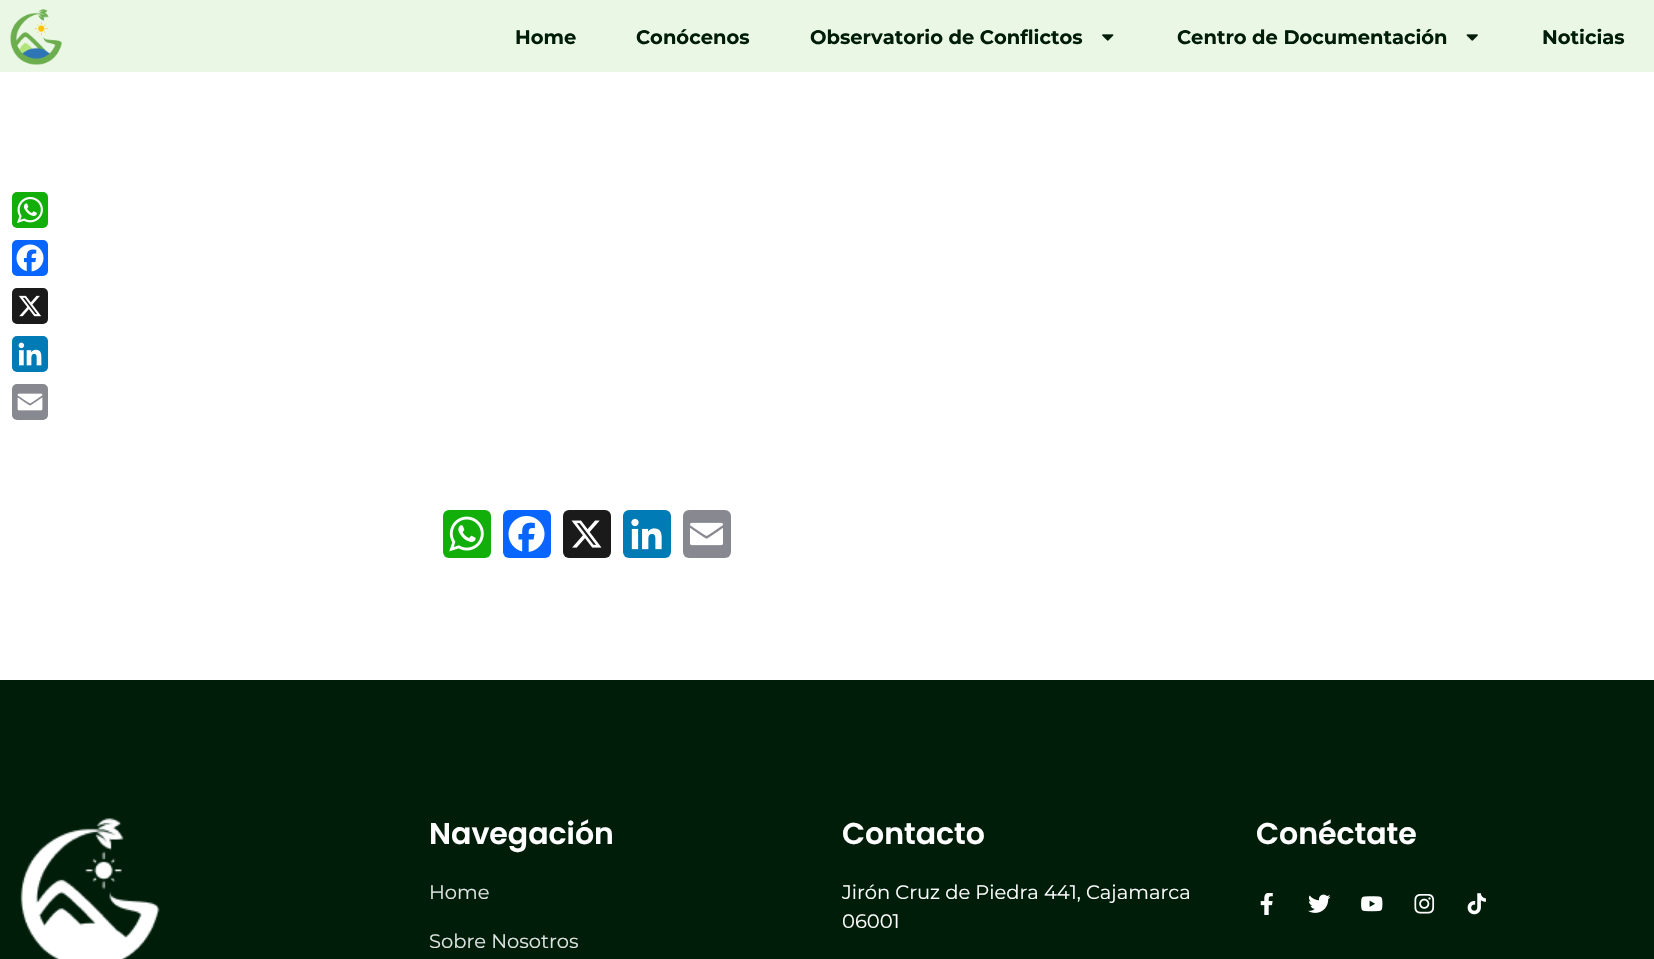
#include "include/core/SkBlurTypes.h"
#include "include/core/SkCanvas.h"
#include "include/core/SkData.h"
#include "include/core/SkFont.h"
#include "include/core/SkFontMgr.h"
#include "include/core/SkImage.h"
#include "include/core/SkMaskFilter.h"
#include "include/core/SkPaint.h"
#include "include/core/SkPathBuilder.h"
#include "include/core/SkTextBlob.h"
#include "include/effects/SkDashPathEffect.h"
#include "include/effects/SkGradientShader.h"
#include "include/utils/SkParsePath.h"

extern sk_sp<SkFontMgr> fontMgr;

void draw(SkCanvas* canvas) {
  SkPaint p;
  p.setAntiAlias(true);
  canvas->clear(SK_ColorWHITE);
  p.setColor(SkColorSetRGB(234, 247, 228));
  canvas->drawRect(SkRect::MakeLTRB(0, 0, 1654, 72), p);
  canvas->drawImageRect(SkImages::DeferredFromEncodedData(SkData::MakeFromFileName("images/1.png")), SkRect::MakeLTRB(10, 9, 63, 65), SkSamplingOptions());
  canvas->drawImageRect(SkImages::DeferredFromEncodedData(SkData::MakeFromFileName("images/2.png")), SkRect::MakeLTRB(1102, 34, 1114, 41), SkSamplingOptions());
  canvas->drawImageRect(SkImages::DeferredFromEncodedData(SkData::MakeFromFileName("images/3.png")), SkRect::MakeLTRB(1466, 34, 1478, 41), SkSamplingOptions());
  p.setColor(SkColorSetRGB(18, 175, 10));
  canvas->drawRoundRect(SkRect::MakeLTRB(12, 192, 48, 228), 5, 5, p);
  canvas->drawImageRect(SkImages::DeferredFromEncodedData(SkData::MakeFromFileName("images/4.png")), SkRect::MakeLTRB(17, 197, 43, 223), SkSamplingOptions());
  p.setColor(SkColorSetRGB(8, 102, 255));
  canvas->drawRoundRect(SkRect::MakeLTRB(12, 240, 48, 276), 5, 5, p);
  canvas->drawImageRect(SkImages::DeferredFromEncodedData(SkData::MakeFromFileName("images/5.png")), SkRect::MakeLTRB(16, 244, 44, 272), SkSamplingOptions());
  p.setColor(SkColorSetRGB(26, 26, 26));
  canvas->drawRoundRect(SkRect::MakeLTRB(12, 288, 48, 324), 5, 5, p);
  canvas->drawImageRect(SkImages::DeferredFromEncodedData(SkData::MakeFromFileName("images/6.png")), SkRect::MakeLTRB(18, 295, 42, 317), SkSamplingOptions());
  p.setColor(SkColorSetRGB(0, 123, 181));
  canvas->drawRoundRect(SkRect::MakeLTRB(12, 336, 48, 372), 5, 5, p);
  canvas->drawImageRect(SkImages::DeferredFromEncodedData(SkData::MakeFromFileName("images/7.png")), SkRect::MakeLTRB(18, 342, 42, 366), SkSamplingOptions());
  p.setColor(SkColorSetRGB(136, 137, 144));
  canvas->drawRoundRect(SkRect::MakeLTRB(12, 384, 48, 420), 5, 5, p);
  canvas->drawImageRect(SkImages::DeferredFromEncodedData(SkData::MakeFromFileName("images/8.png")), SkRect::MakeLTRB(17, 393, 43, 411), SkSamplingOptions());
  p.setColor(SkColorSetRGB(18, 175, 10));
  canvas->drawRoundRect(SkRect::MakeLTRB(443, 510, 491, 558), 6, 6, p);
  canvas->drawImageRect(SkImages::DeferredFromEncodedData(SkData::MakeFromFileName("images/9.png")), SkRect::MakeLTRB(449, 516, 484, 552), SkSamplingOptions());
  p.setColor(SkColorSetRGB(8, 102, 255));
  canvas->drawRoundRect(SkRect::MakeLTRB(503, 510, 551, 558), 6, 6, p);
  canvas->drawImageRect(SkImages::DeferredFromEncodedData(SkData::MakeFromFileName("images/10.png")), SkRect::MakeLTRB(508, 516, 545, 552), SkSamplingOptions());
  p.setColor(SkColorSetRGB(26, 26, 26));
  canvas->drawRoundRect(SkRect::MakeLTRB(563, 510, 611, 558), 6, 6, p);
  canvas->drawImageRect(SkImages::DeferredFromEncodedData(SkData::MakeFromFileName("images/11.png")), SkRect::MakeLTRB(571, 520, 602, 548), SkSamplingOptions());
  p.setColor(SkColorSetRGB(0, 123, 181));
  canvas->drawRoundRect(SkRect::MakeLTRB(623, 510, 671, 558), 6, 6, p);
  canvas->drawImageRect(SkImages::DeferredFromEncodedData(SkData::MakeFromFileName("images/12.png")), SkRect::MakeLTRB(631, 518, 662, 550), SkSamplingOptions());
  p.setColor(SkColorSetRGB(136, 137, 144));
  canvas->drawRoundRect(SkRect::MakeLTRB(683, 510, 731, 558), 6, 6, p);
  canvas->drawImageRect(SkImages::DeferredFromEncodedData(SkData::MakeFromFileName("images/13.png")), SkRect::MakeLTRB(690, 522, 723, 546), SkSamplingOptions());
  p.setColor(SkColorSetRGB(0, 29, 10));
  canvas->drawRect(SkRect::MakeLTRB(0, 680, 1654, 959), p);
  canvas->drawImageRect(SkImages::DeferredFromEncodedData(SkData::MakeFromFileName("images/14.png")), SkRect::MakeLTRB(20, 818, 160, 959), SkSamplingOptions());
  canvas->drawImageRect(SkImages::DeferredFromEncodedData(SkData::MakeFromFileName("images/15.png")), SkRect::MakeLTRB(1260, 893, 1273, 915), SkSamplingOptions());
  canvas->drawImageRect(SkImages::DeferredFromEncodedData(SkData::MakeFromFileName("images/16.png")), SkRect::MakeLTRB(1308, 894, 1331, 913), SkSamplingOptions());
  canvas->drawImageRect(SkImages::DeferredFromEncodedData(SkData::MakeFromFileName("images/17.png")), SkRect::MakeLTRB(1361, 896, 1383, 912), SkSamplingOptions());
  canvas->drawImageRect(SkImages::DeferredFromEncodedData(SkData::MakeFromFileName("images/18.png")), SkRect::MakeLTRB(1414, 894, 1435, 914), SkSamplingOptions());
  canvas->drawImageRect(SkImages::DeferredFromEncodedData(SkData::MakeFromFileName("images/19.png")), SkRect::MakeLTRB(1467, 893, 1486, 915), SkSamplingOptions());
  SkFont font1(fontMgr->matchFamilyStyle("Montserrat", SkFontStyle::Bold()), 19.5f);
  font1.setSubpixel(true);
  canvas->drawString("Home", 515, 44, font1, p);
  canvas->drawString("Conócenos", 636, 44, font1, p);
  canvas->drawString("Observatorio de Conflictos", 810, 44, font1, p);
  canvas->drawString("Centro de Documentación", 1177, 44, font1, p);
  canvas->drawString("Noticias", 1542, 44, font1, p);
  SkFont font2(fontMgr->matchFamilyStyle("Poppins", SkFontStyle(600, SkFontStyle::kNormal_Width, SkFontStyle::kUpright_Slant)), 30);
  font2.setSubpixel(true);
  p.setColor(SK_ColorWHITE);
  canvas->drawString("Navegación", 429, 844, font2, p);
  SkFont font3(fontMgr->matchFamilyStyle("Montserrat", SkFontStyle::Normal()), 19.5f);
  font3.setSubpixel(true);
  p.setColor(SkColorSetRGB(224, 228, 226));
  canvas->drawString("Home", 429, 899, font3, p);
  canvas->drawString("Sobre Nosotros", 429, 948, font3, p);
  p.setColor(SK_ColorWHITE);
  canvas->drawString("Contacto", 842, 844, font2, p);
  canvas->drawString("Jirón Cruz de Piedra 441, Cajamarca", 842, 899, font3, p);
  canvas->drawString("06001", 842, 928, font3, p);
  canvas->drawString("Conéctate", 1256, 844, font2, p);
}
